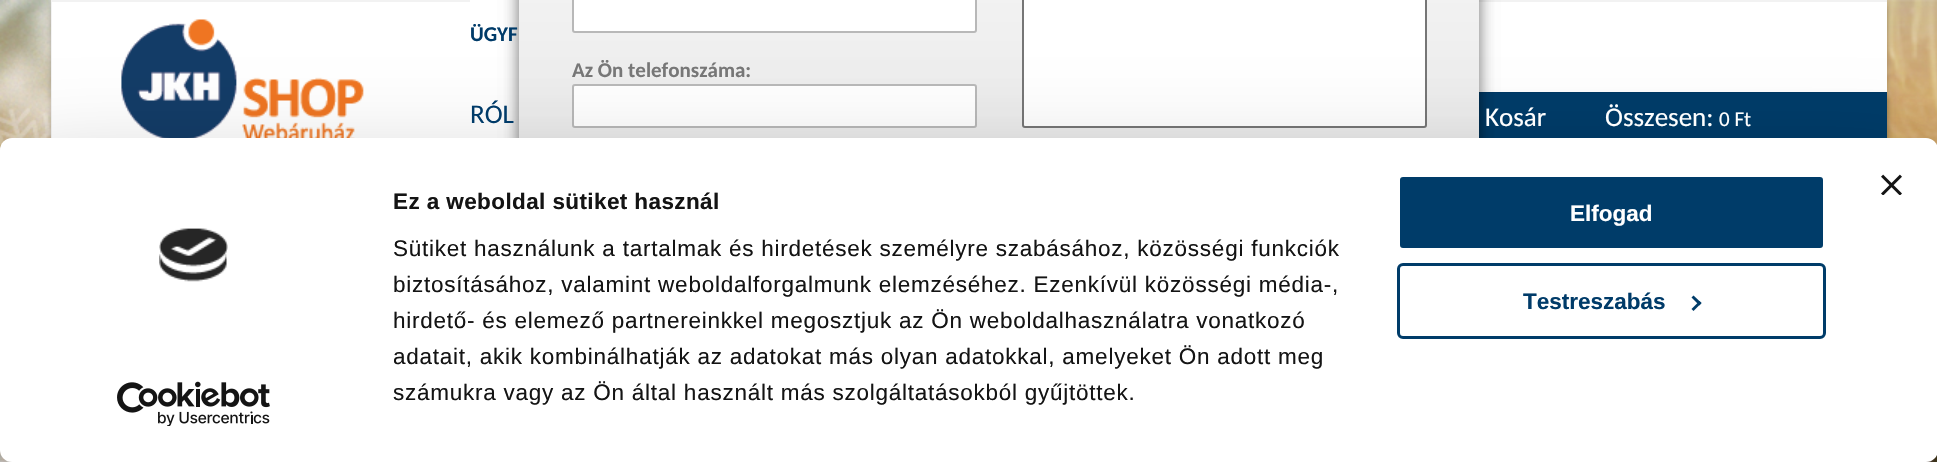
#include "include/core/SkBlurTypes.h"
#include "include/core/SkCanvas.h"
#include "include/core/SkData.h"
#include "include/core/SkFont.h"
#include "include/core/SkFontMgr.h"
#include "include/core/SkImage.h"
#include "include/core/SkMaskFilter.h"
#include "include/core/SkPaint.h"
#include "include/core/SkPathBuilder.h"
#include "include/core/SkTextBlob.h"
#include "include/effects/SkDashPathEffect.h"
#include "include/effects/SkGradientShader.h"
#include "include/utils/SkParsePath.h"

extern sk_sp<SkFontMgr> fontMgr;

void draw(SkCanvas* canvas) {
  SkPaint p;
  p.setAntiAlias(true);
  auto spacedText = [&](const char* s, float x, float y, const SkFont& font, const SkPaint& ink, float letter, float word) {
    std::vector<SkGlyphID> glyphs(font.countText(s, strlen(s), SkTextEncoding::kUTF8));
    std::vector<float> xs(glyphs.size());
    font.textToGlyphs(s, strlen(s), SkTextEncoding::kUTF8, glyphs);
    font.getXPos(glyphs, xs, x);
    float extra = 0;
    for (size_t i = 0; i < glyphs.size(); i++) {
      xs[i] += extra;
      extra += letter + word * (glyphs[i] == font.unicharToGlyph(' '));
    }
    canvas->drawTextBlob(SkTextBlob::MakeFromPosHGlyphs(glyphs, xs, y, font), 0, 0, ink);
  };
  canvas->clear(SK_ColorWHITE);
  canvas->drawImageRect(SkImages::DeferredFromEncodedData(SkData::MakeFromFileName("images/1.png")), SkRect::MakeLTRB(0, 0, 1937, 462), SkSamplingOptions());
  p.setColor(SkColorSetARGB(51, 0, 0, 0));
  p.setMaskFilter(SkMaskFilter::MakeBlur(kNormal_SkBlurStyle, 3));
  canvas->drawRect(SkRect::MakeLTRB(51, 6, 1887, 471), p);
  p.setMaskFilter(nullptr);
  p.setColor(SK_ColorWHITE);
  canvas->drawRect(SkRect::MakeLTRB(52, 2, 1887, 138), p);
  canvas->save();
  canvas->clipRect(SkRect::MakeLTRB(51, 0, 1887, 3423));
  p.setColor(SkColorSetRGB(242, 242, 242));
  canvas->drawPath(SkPathBuilder(SkPathFillType::kEvenOdd).moveTo(-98, -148).lineTo(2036, -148).lineTo(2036, 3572).lineTo(-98, 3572).close().moveTo(52, 2).lineTo(1888, 2).lineTo(1888, 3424).lineTo(52, 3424).close().detach(), p);
  canvas->restore();
  canvas->drawImageRect(SkImages::DeferredFromEncodedData(SkData::MakeFromFileName("images/2.png")), SkRect::MakeLTRB(121, 19, 364, 138), SkSamplingOptions());
  p.setColor(SK_ColorWHITE);
  canvas->drawRect(SkRect::MakeLTRB(470, 0, 519, 2), p);
  p.setColor(SkColorSetARGB(51, 0, 0, 0));
  p.setMaskFilter(SkMaskFilter::MakeBlur(kNormal_SkBlurStyle, 3));
  canvas->drawRect(SkRect::MakeLTRB(1430, 98, 1887, 149), p);
  p.setMaskFilter(nullptr);
  p.setColor(SkColorSetRGB(0, 60, 105));
  canvas->drawRect(SkRect::MakeLTRB(1479, 93, 1887, 138), p);
  canvas->save();
  canvas->clipRect(SkRect::MakeLTRB(1430, 92, 1887, 143));
  p.setColor(SkColorSetRGB(0, 57, 100));
  canvas->drawPath(SkPathBuilder(SkPathFillType::kEvenOdd).moveTo(1281, -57).lineTo(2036, -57).lineTo(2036, 291).lineTo(1281, 291).close().moveTo(1431, 93).lineTo(1888, 93).lineTo(1888, 144).lineTo(1431, 144).close().detach(), p);
  canvas->restore();
  p.setColor(SkColorSetARGB(77, 0, 0, 0));
  p.setMaskFilter(SkMaskFilter::MakeBlur(kNormal_SkBlurStyle, 7.5f));
  canvas->drawRect(SkRect::MakeLTRB(519, -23, 1479, 255), p);
  p.setMaskFilter(nullptr);
  p.setMaskFilter(SkMaskFilter::MakeBlur(kNormal_SkBlurStyle, 7.5f));
  canvas->drawRect(SkRect::MakeLTRB(519, -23, 1479, 240), p);
  p.setMaskFilter(nullptr);
  {
    const SkColor colors[] = {SK_ColorWHITE, SkColorSetRGB(229, 229, 229)};
    const float stops[] = {0, 1};
    const SkPoint ends[] = {{999, -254}, {999, 240}};
    p.setShader(SkGradientShader::MakeLinear(ends, colors, stops, 2, SkTileMode::kClamp));
    p.setAlpha(255);
  }
  canvas->drawRect(SkRect::MakeLTRB(519, 0, 1479, 138), p);
  p.setShader(nullptr);
  p.setColor(SK_ColorWHITE);
  canvas->drawRoundRect(SkRect::MakeLTRB(573, -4, 976, 32), 2, 2, p);
  p.setStyle(SkPaint::kStroke_Style);
  p.setStrokeWidth(2);
  p.setColor(SkColorSetRGB(184, 184, 184));
  canvas->drawRoundRect(SkRect::MakeLTRB(573, -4, 976, 32), 2, 2, p);
  p.setStyle(SkPaint::kFill_Style);
  p.setColor(SK_ColorWHITE);
  canvas->drawRoundRect(SkRect::MakeLTRB(573, 85, 976, 127), 2, 2, p);
  p.setStyle(SkPaint::kStroke_Style);
  p.setColor(SkColorSetRGB(184, 184, 184));
  canvas->drawRoundRect(SkRect::MakeLTRB(573, 85, 976, 127), 2, 2, p);
  p.setStyle(SkPaint::kFill_Style);
  p.setColor(SK_ColorWHITE);
  canvas->drawRoundRect(SkRect::MakeLTRB(1023, -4, 1426, 127), 2, 2, p);
  p.setStyle(SkPaint::kStroke_Style);
  p.setColor(SkColorSetRGB(118, 118, 118));
  canvas->drawRoundRect(SkRect::MakeLTRB(1023, -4, 1426, 127), 2, 2, p);
  p.setStyle(SkPaint::kFill_Style);
  p.setColor(SkColorSetARGB(77, 0, 0, 0));
  p.setMaskFilter(SkMaskFilter::MakeBlur(kNormal_SkBlurStyle, 52.5f));
  canvas->drawRoundRect(SkRect::MakeLTRB(0, 183, 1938, 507), 12, 12, p);
  p.setMaskFilter(nullptr);
  p.setColor(SK_ColorWHITE);
  canvas->drawRoundRect(SkRect::MakeLTRB(0, 138, 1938, 462), 12, 12, p);
  canvas->drawImageRect(SkImages::DeferredFromEncodedData(SkData::MakeFromFileName("images/3.png")), SkRect::MakeLTRB(1881, 174, 1902, 195), SkSamplingOptions());
  canvas->drawImageRect(SkImages::DeferredFromEncodedData(SkData::MakeFromFileName("images/4.png")), SkRect::MakeLTRB(159, 228, 228, 282), SkSamplingOptions());
  canvas->drawImageRect(SkImages::DeferredFromEncodedData(SkData::MakeFromFileName("images/5.png")), SkRect::MakeLTRB(117, 381, 270, 426), SkSamplingOptions());
  p.setColor(SkColorSetRGB(0, 60, 105));
  canvas->drawRoundRect(SkRect::MakeLTRB(1398.5f, 175.5f, 1824.5f, 249.5f), 4.5f, 4.5f, p);
  p.setStyle(SkPaint::kStroke_Style);
  p.setStrokeWidth(3);
  p.setColor(SK_ColorWHITE);
  canvas->drawRoundRect(SkRect::MakeLTRB(1398.5f, 175.5f, 1824.5f, 249.5f), 4.5f, 4.5f, p);
  p.setColor(SkColorSetRGB(0, 60, 105));
  canvas->drawRoundRect(SkRect::MakeLTRB(1398.5f, 264.5f, 1824.5f, 337.5f), 4.5f, 4.5f, p);
  p.setStyle(SkPaint::kFill_Style);
  canvas->drawPath(SkPathBuilder().moveTo(1693.5f, 295.5f).lineTo(1701.5f, 303).lineTo(1699.5f, 305.5f).lineTo(1691.5f, 297.5f).close().detach(), p);
  canvas->drawPath(SkPathBuilder().moveTo(1699.5f, 301).lineTo(1701.5f, 303).lineTo(1693.5f, 311).lineTo(1691.5f, 309).close().detach(), p);
  SkFont font1(fontMgr->matchFamilyStyle("Carlito", SkFontStyle::Bold()), 21);
  font1.setSubpixel(true);
  p.setColor(SkColorSetRGB(0, 59, 105));
  canvas->drawString("ÜGYF", 470, 41, font1, p);
  SkFont font2(fontMgr->matchFamilyStyle("Carlito", SkFontStyle::Normal()), 27);
  font2.setSubpixel(true);
  canvas->drawString("RÓL", 470, 123, font2, p);
  p.setColor(SK_ColorWHITE);
  canvas->drawString("Kosár", 1485, 126, font2, p);
  canvas->drawString("Összesen:", 1605, 126, font2, p);
  SkFont font3(fontMgr->matchFamilyStyle("Carlito", SkFontStyle::Normal()), 21);
  font3.setSubpixel(true);
  canvas->drawString("0 Ft", 1719, 126, font3, p);
  p.setColor(SkColorSetRGB(119, 119, 119));
  canvas->drawString("Az Ön telefonszáma:", 572, 77, font1, p);
  SkFont font4(fontMgr->matchFamilyStyle("Liberation Sans", SkFontStyle::Bold()), 22.5f);
  font4.setSubpixel(true);
  p.setColor(SkColorSetRGB(20, 20, 20));
  spacedText("Ez a weboldal sütiket használ", 393, 209, font4, p, 0.4f, 0);
  SkFont font5(fontMgr->matchFamilyStyle("Liberation Sans", SkFontStyle::Normal()), 22.5f);
  font5.setSubpixel(true);
  spacedText("Sütiket használunk a tartalmak és hirdetések személyre szabásához, közösségi funkciók", 393, 256, font5, p, 0.75f, 0);
  spacedText("biztosításához, valamint weboldalforgalmunk elemzéséhez. Ezenkívül közösségi média-,", 393, 292, font5, p, 0.75f, 0);
  spacedText("hirdető- és elemező partnereinkkel megosztjuk az Ön weboldalhasználatra vonatkozó", 393, 328, font5, p, 0.75f, 0);
  spacedText("adatait, akik kombinálhatják az adatokat más olyan adatokkal, amelyeket Ön adott meg", 393, 364, font5, p, 0.75f, 0);
  spacedText("számukra vagy az Ön által használt más szolgáltatásokból gyűjtöttek.", 393, 400, font5, p, 0.75f, 0);
  p.setColor(SK_ColorWHITE);
  canvas->drawString("Elfogad", 1570, 221, font4, p);
  p.setColor(SkColorSetRGB(0, 59, 105));
  canvas->drawString("Testreszabás", 1523, 309, font4, p);
}
